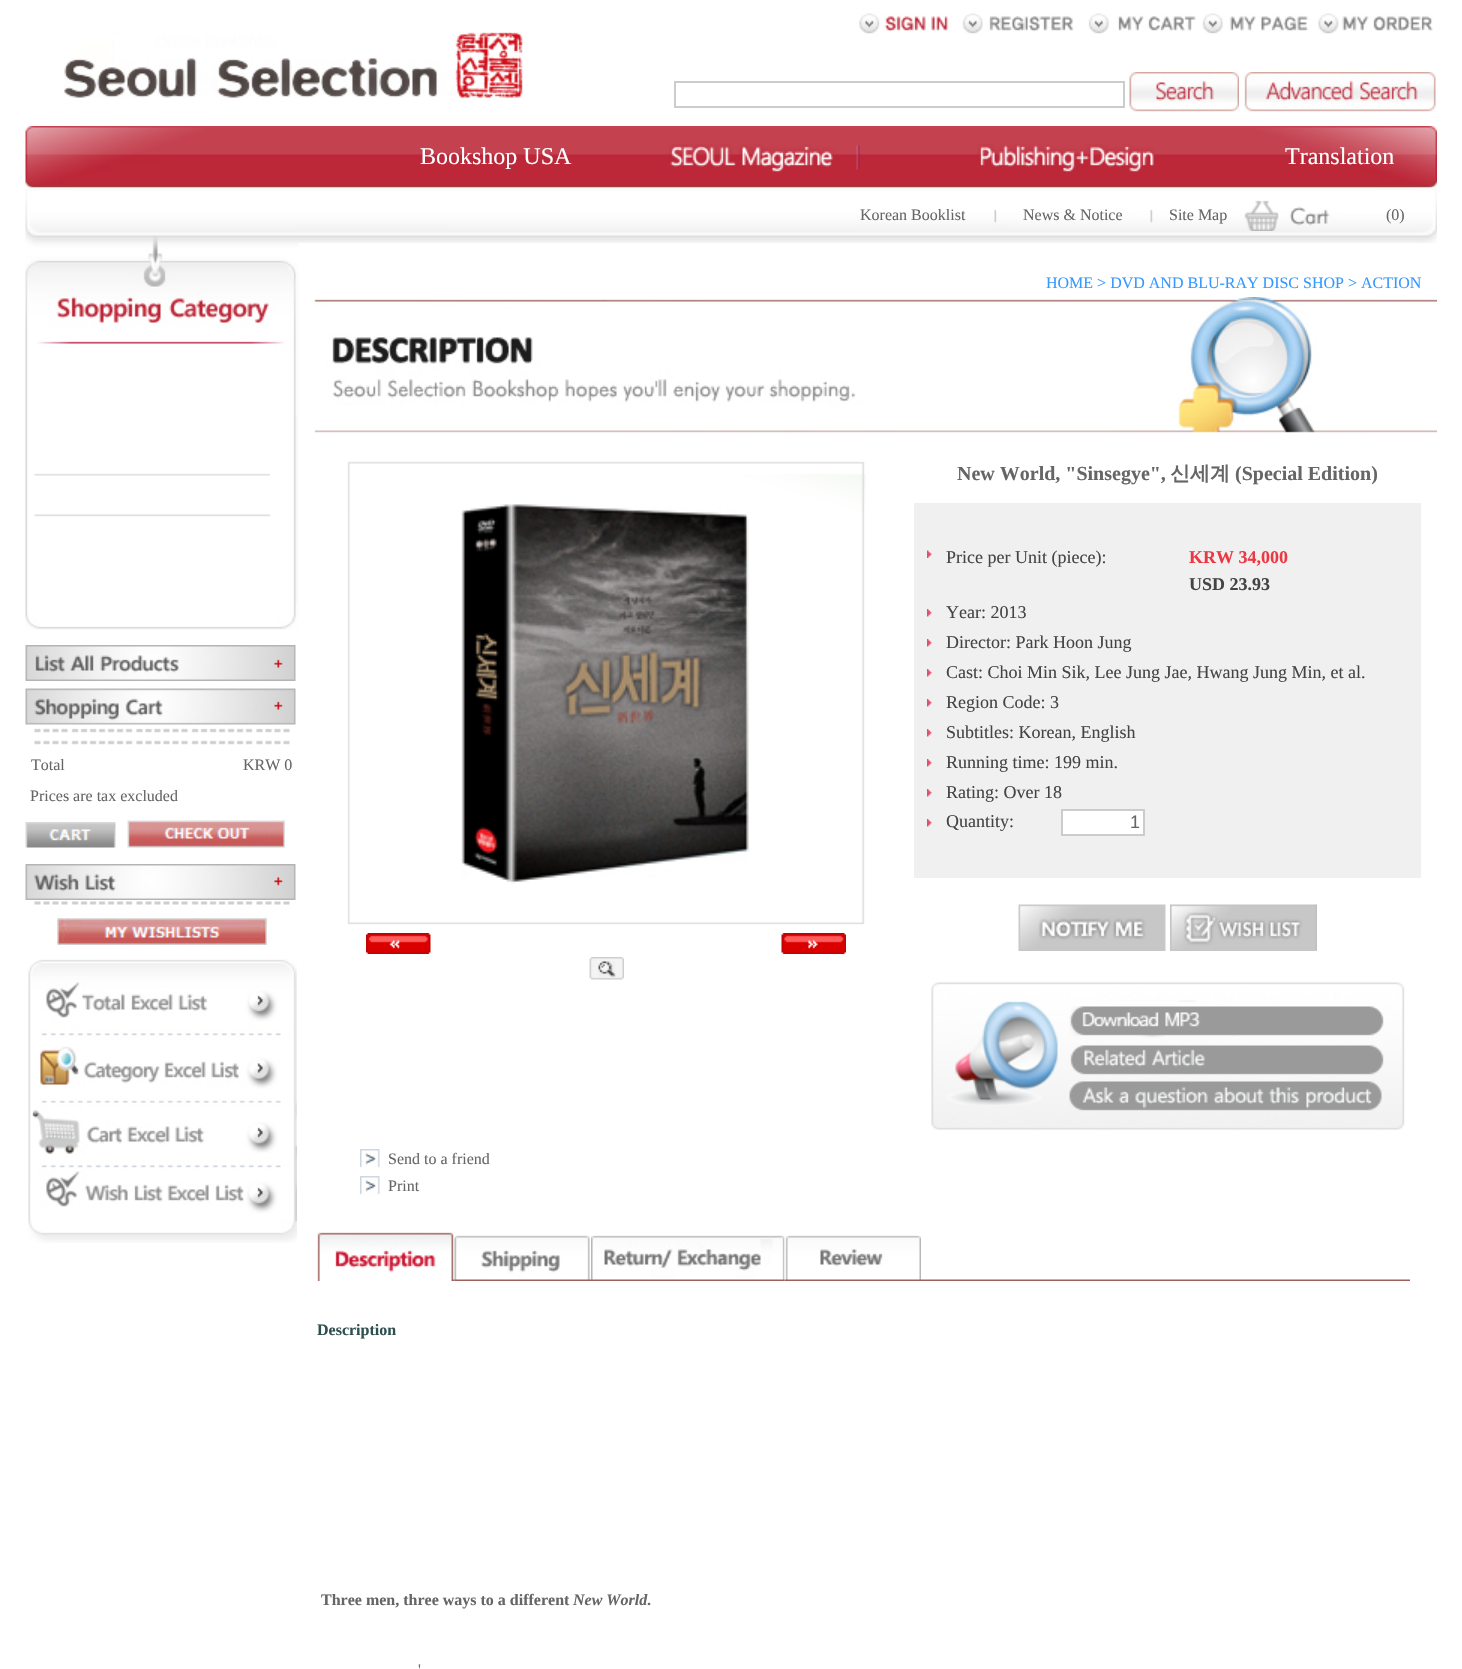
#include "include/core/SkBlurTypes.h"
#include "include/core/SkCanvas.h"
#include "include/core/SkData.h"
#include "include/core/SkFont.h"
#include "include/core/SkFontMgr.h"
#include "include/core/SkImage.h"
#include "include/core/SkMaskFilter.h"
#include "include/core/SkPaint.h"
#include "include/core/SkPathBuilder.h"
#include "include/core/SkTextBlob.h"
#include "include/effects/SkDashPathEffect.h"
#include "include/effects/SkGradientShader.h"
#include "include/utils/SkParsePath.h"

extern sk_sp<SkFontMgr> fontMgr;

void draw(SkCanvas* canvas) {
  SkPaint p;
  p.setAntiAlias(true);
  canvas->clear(SK_ColorWHITE);
  canvas->drawImageRect(SkImages::DeferredFromEncodedData(SkData::MakeFromFileName("images/1.png")), SkRect::MakeLTRB(859, 13, 952, 34), SkSamplingOptions());
  canvas->drawImageRect(SkImages::DeferredFromEncodedData(SkData::MakeFromFileName("images/2.png")), SkRect::MakeLTRB(962, 13, 1074, 34), SkSamplingOptions());
  canvas->drawImageRect(SkImages::DeferredFromEncodedData(SkData::MakeFromFileName("images/3.png")), SkRect::MakeLTRB(1088, 13, 1196, 34), SkSamplingOptions());
  canvas->drawImageRect(SkImages::DeferredFromEncodedData(SkData::MakeFromFileName("images/4.png")), SkRect::MakeLTRB(1202, 13, 1309, 34), SkSamplingOptions());
  canvas->drawImageRect(SkImages::DeferredFromEncodedData(SkData::MakeFromFileName("images/5.png")), SkRect::MakeLTRB(1318, 13, 1433, 34), SkSamplingOptions());
  canvas->drawImageRect(SkImages::DeferredFromEncodedData(SkData::MakeFromFileName("images/6.png")), SkRect::MakeLTRB(64, 32, 523, 98), SkSamplingOptions());
  p.setStyle(SkPaint::kStroke_Style);
  p.setStrokeWidth(2);
  p.setColor(SkColorSetRGB(204, 204, 204));
  canvas->drawRect(SkRect::MakeLTRB(675, 82, 1124, 107), p);
  canvas->drawImageRect(SkImages::DeferredFromEncodedData(SkData::MakeFromFileName("images/7.png")), SkRect::MakeLTRB(1129, 72, 1239, 112), SkSamplingOptions());
  canvas->drawImageRect(SkImages::DeferredFromEncodedData(SkData::MakeFromFileName("images/8.png")), SkRect::MakeLTRB(1244, 72, 1436, 112), SkSamplingOptions());
  canvas->drawImageRect(SkImages::DeferredFromEncodedData(SkData::MakeFromFileName("images/9.png")), SkRect::MakeLTRB(25, 126, 1437, 188), SkSamplingOptions());
  canvas->drawImageRect(SkImages::DeferredFromEncodedData(SkData::MakeFromFileName("images/10.png")), SkRect::MakeLTRB(669, 144, 860, 172), SkSamplingOptions());
  canvas->drawImageRect(SkImages::DeferredFromEncodedData(SkData::MakeFromFileName("images/11.png")), SkRect::MakeLTRB(977, 144, 1155, 172), SkSamplingOptions());
  canvas->drawImageRect(SkImages::DeferredFromEncodedData(SkData::MakeFromFileName("images/12.png")), SkRect::MakeLTRB(25, 187, 1437, 243), SkSamplingOptions());
  canvas->drawImageRect(SkImages::DeferredFromEncodedData(SkData::MakeFromFileName("images/13.png")), SkRect::MakeLTRB(994, 209, 997, 223), SkSamplingOptions());
  canvas->drawImageRect(SkImages::DeferredFromEncodedData(SkData::MakeFromFileName("images/14.png")), SkRect::MakeLTRB(1150, 209, 1153, 223), SkSamplingOptions());
  canvas->drawImageRect(SkImages::DeferredFromEncodedData(SkData::MakeFromFileName("images/15.png")), SkRect::MakeLTRB(1244, 200, 1330, 231), SkSamplingOptions());
  canvas->drawImageRect(SkImages::DeferredFromEncodedData(SkData::MakeFromFileName("images/16.png")), SkRect::MakeLTRB(25, 243, 299, 630), SkSamplingOptions());
  canvas->drawImageRect(SkImages::DeferredFromEncodedData(SkData::MakeFromFileName("images/17.png")), SkRect::MakeLTRB(34, 473, 271, 476), SkSamplingOptions());
  canvas->drawImageRect(SkImages::DeferredFromEncodedData(SkData::MakeFromFileName("images/18.png")), SkRect::MakeLTRB(34, 514, 271, 517), SkSamplingOptions());
  canvas->drawImageRect(SkImages::DeferredFromEncodedData(SkData::MakeFromFileName("images/19.png")), SkRect::MakeLTRB(25, 645, 296, 681), SkSamplingOptions());
  canvas->drawImageRect(SkImages::DeferredFromEncodedData(SkData::MakeFromFileName("images/20.png")), SkRect::MakeLTRB(25, 688, 296, 725), SkSamplingOptions());
  canvas->drawImageRect(SkImages::DeferredFromEncodedData(SkData::MakeFromFileName("images/21.png")), SkRect::MakeLTRB(34, 728, 290, 733), SkSamplingOptions());
  canvas->drawImageRect(SkImages::DeferredFromEncodedData(SkData::MakeFromFileName("images/21.png")), SkRect::MakeLTRB(34, 740, 290, 745), SkSamplingOptions());
  canvas->drawImageRect(SkImages::DeferredFromEncodedData(SkData::MakeFromFileName("images/22.png")), SkRect::MakeLTRB(25, 822, 116, 848), SkSamplingOptions());
  canvas->drawImageRect(SkImages::DeferredFromEncodedData(SkData::MakeFromFileName("images/23.png")), SkRect::MakeLTRB(127, 820, 285, 848), SkSamplingOptions());
  canvas->drawImageRect(SkImages::DeferredFromEncodedData(SkData::MakeFromFileName("images/24.png")), SkRect::MakeLTRB(25, 864, 296, 900), SkSamplingOptions());
  canvas->drawImageRect(SkImages::DeferredFromEncodedData(SkData::MakeFromFileName("images/25.png")), SkRect::MakeLTRB(34, 901, 290, 905), SkSamplingOptions());
  canvas->drawImageRect(SkImages::DeferredFromEncodedData(SkData::MakeFromFileName("images/26.png")), SkRect::MakeLTRB(57, 918, 267, 945), SkSamplingOptions());
  canvas->drawImageRect(SkImages::DeferredFromEncodedData(SkData::MakeFromFileName("images/27.png")), SkRect::MakeLTRB(28, 959, 297, 1243), SkSamplingOptions());
  canvas->drawImageRect(SkImages::DeferredFromEncodedData(SkData::MakeFromFileName("images/28.png")), SkRect::MakeLTRB(314, 297, 1437, 433), SkSamplingOptions());
  canvas->drawImageRect(SkImages::DeferredFromEncodedData(SkData::MakeFromFileName("images/29.png")), SkRect::MakeLTRB(347, 461, 866, 925), SkSamplingOptions());
  canvas->drawImageRect(SkImages::DeferredFromEncodedData(SkData::MakeFromFileName("images/30.png")), SkRect::MakeLTRB(461, 504, 749, 884), SkSamplingOptions());
  canvas->drawImageRect(SkImages::DeferredFromEncodedData(SkData::MakeFromFileName("images/31.png")), SkRect::MakeLTRB(366, 933, 431, 954), SkSamplingOptions());
  canvas->drawImageRect(SkImages::DeferredFromEncodedData(SkData::MakeFromFileName("images/32.png")), SkRect::MakeLTRB(781, 933, 846, 954), SkSamplingOptions());
  p.setStyle(SkPaint::kFill_Style);
  p.setColor(SkColorSetRGB(240, 240, 240));
  canvas->drawRect(SkRect::MakeLTRB(914, 503, 1421, 878), p);
  canvas->drawImageRect(SkImages::DeferredFromEncodedData(SkData::MakeFromFileName("images/33.png")), SkRect::MakeLTRB(927, 550, 932, 558), SkSamplingOptions());
  canvas->drawImageRect(SkImages::DeferredFromEncodedData(SkData::MakeFromFileName("images/34.png")), SkRect::MakeLTRB(927, 609, 932, 617), SkSamplingOptions());
  canvas->drawImageRect(SkImages::DeferredFromEncodedData(SkData::MakeFromFileName("images/34.png")), SkRect::MakeLTRB(927, 639, 932, 647), SkSamplingOptions());
  canvas->drawImageRect(SkImages::DeferredFromEncodedData(SkData::MakeFromFileName("images/34.png")), SkRect::MakeLTRB(927, 669, 932, 677), SkSamplingOptions());
  canvas->drawImageRect(SkImages::DeferredFromEncodedData(SkData::MakeFromFileName("images/34.png")), SkRect::MakeLTRB(927, 699, 932, 707), SkSamplingOptions());
  canvas->drawImageRect(SkImages::DeferredFromEncodedData(SkData::MakeFromFileName("images/34.png")), SkRect::MakeLTRB(927, 729, 932, 737), SkSamplingOptions());
  canvas->drawImageRect(SkImages::DeferredFromEncodedData(SkData::MakeFromFileName("images/34.png")), SkRect::MakeLTRB(927, 759, 932, 767), SkSamplingOptions());
  canvas->drawImageRect(SkImages::DeferredFromEncodedData(SkData::MakeFromFileName("images/34.png")), SkRect::MakeLTRB(927, 789, 932, 797), SkSamplingOptions());
  canvas->drawImageRect(SkImages::DeferredFromEncodedData(SkData::MakeFromFileName("images/34.png")), SkRect::MakeLTRB(927, 819, 932, 827), SkSamplingOptions());
  p.setColor(SK_ColorWHITE);
  canvas->drawRect(SkRect::MakeLTRB(1062, 810, 1144, 835), p);
  p.setStyle(SkPaint::kStroke_Style);
  p.setColor(SkColorSetRGB(204, 204, 204));
  canvas->drawRect(SkRect::MakeLTRB(1062, 810, 1144, 835), p);
  canvas->drawImageRect(SkImages::DeferredFromEncodedData(SkData::MakeFromFileName("images/35.png")), SkRect::MakeLTRB(1018, 904, 1166, 951), SkSamplingOptions());
  canvas->drawImageRect(SkImages::DeferredFromEncodedData(SkData::MakeFromFileName("images/36.png")), SkRect::MakeLTRB(1170, 904, 1317, 951), SkSamplingOptions());
  canvas->drawImageRect(SkImages::DeferredFromEncodedData(SkData::MakeFromFileName("images/37.png")), SkRect::MakeLTRB(589, 957, 624, 980), SkSamplingOptions());
  canvas->drawImageRect(SkImages::DeferredFromEncodedData(SkData::MakeFromFileName("images/38.png")), SkRect::MakeLTRB(931, 982, 1405, 1130), SkSamplingOptions());
  canvas->drawImageRect(SkImages::DeferredFromEncodedData(SkData::MakeFromFileName("images/39.png")), SkRect::MakeLTRB(947, 1001, 1058, 1105), SkSamplingOptions());
  canvas->drawImageRect(SkImages::DeferredFromEncodedData(SkData::MakeFromFileName("images/40.png")), SkRect::MakeLTRB(1069, 1000, 1384, 1038), SkSamplingOptions());
  canvas->drawImageRect(SkImages::DeferredFromEncodedData(SkData::MakeFromFileName("images/41.png")), SkRect::MakeLTRB(1070, 1045, 1384, 1075), SkSamplingOptions());
  canvas->drawImageRect(SkImages::DeferredFromEncodedData(SkData::MakeFromFileName("images/42.png")), SkRect::MakeLTRB(1069, 1081, 1382, 1111), SkSamplingOptions());
  canvas->drawImageRect(SkImages::DeferredFromEncodedData(SkData::MakeFromFileName("images/43.png")), SkRect::MakeLTRB(360, 1149, 380, 1168), SkSamplingOptions());
  canvas->drawImageRect(SkImages::DeferredFromEncodedData(SkData::MakeFromFileName("images/43.png")), SkRect::MakeLTRB(360, 1176, 380, 1195), SkSamplingOptions());
  canvas->drawImageRect(SkImages::DeferredFromEncodedData(SkData::MakeFromFileName("images/44.png")), SkRect::MakeLTRB(317, 1232, 455, 1281), SkSamplingOptions());
  canvas->drawImageRect(SkImages::DeferredFromEncodedData(SkData::MakeFromFileName("images/45.png")), SkRect::MakeLTRB(454, 1235, 591, 1281), SkSamplingOptions());
  canvas->drawImageRect(SkImages::DeferredFromEncodedData(SkData::MakeFromFileName("images/46.png")), SkRect::MakeLTRB(591, 1235, 785, 1281), SkSamplingOptions());
  canvas->drawImageRect(SkImages::DeferredFromEncodedData(SkData::MakeFromFileName("images/47.png")), SkRect::MakeLTRB(784, 1235, 921, 1281), SkSamplingOptions());
  canvas->drawImageRect(SkImages::DeferredFromEncodedData(SkData::MakeFromFileName("images/48.png")), SkRect::MakeLTRB(921, 1279, 1410, 1281), SkSamplingOptions());
  SkFont font1(fontMgr->matchFamilyStyle("Liberation Serif", SkFontStyle::Normal()), 24);
  font1.setSubpixel(true);
  p.setStyle(SkPaint::kFill_Style);
  p.setColor(SkColorSetRGB(249, 255, 255));
  canvas->drawString("Bookshop USA", 420, 164, font1, p);
  canvas->drawString("Translation", 1285, 164, font1, p);
  SkFont font2(fontMgr->matchFamilyStyle("Liberation Serif", SkFontStyle::Normal()), 16);
  font2.setSubpixel(true);
  p.setColor(SkColorSetRGB(102, 102, 102));
  canvas->drawString("Korean Booklist", 860, 220, font2, p);
  canvas->drawString("News & Notice", 1023, 220, font2, p);
  canvas->drawString("Site Map", 1169, 220, font2, p);
  canvas->drawString("(0)", 1386, 220, font2, p);
  canvas->drawString("Total", 31, 770, font2, p);
  canvas->drawString("KRW 0", 243, 770, font2, p);
  canvas->drawString("Prices are tax excluded", 30, 801, font2, p);
  p.setColor(SkColorSetRGB(51, 153, 255));
  canvas->drawString("HOME > DVD AND BLU-RAY DISC SHOP > ACTION", 1046, 288, font2, p);
  SkFont font3(fontMgr->matchFamilyStyle("Liberation Serif", SkFontStyle::Bold()), 20);
  font3.setSubpixel(true);
  p.setColor(SkColorSetRGB(102, 102, 102));
  canvas->drawString("New World, \"Sinsegye\",", 957, 480, font3, p);
  SkFont font4(fontMgr->matchFamilyStyle("WenQuanYi Zen Hei", SkFontStyle::Bold()), 20);
  font4.setSubpixel(true);
  canvas->drawString("신세계", 1170, 480, font4, p);
  canvas->drawString("(Special Edition)", 1235, 480, font3, p);
  SkFont font5(fontMgr->matchFamilyStyle("Liberation Serif", SkFontStyle::Normal()), 18);
  font5.setSubpixel(true);
  p.setColor(SkColorSetRGB(68, 68, 68));
  canvas->drawString("Price per Unit (piece):", 946, 563, font5, p);
  SkFont font6(fontMgr->matchFamilyStyle("Liberation Serif", SkFontStyle::Bold()), 18);
  font6.setSubpixel(true);
  p.setColor(SkColorSetRGB(236, 56, 67));
  canvas->drawString("KRW 34,000", 1189, 563, font6, p);
  p.setColor(SkColorSetRGB(68, 68, 68));
  canvas->drawString("USD 23.93", 1189, 590, font6, p);
  canvas->drawString("Year: 2013", 946, 618, font5, p);
  canvas->drawString("Director: Park Hoon Jung", 946, 648, font5, p);
  canvas->drawString("Cast: Choi Min Sik, Lee Jung Jae, Hwang Jung Min, et al.", 946, 678, font5, p);
  canvas->drawString("Region Code: 3", 946, 708, font5, p);
  canvas->drawString("Subtitles: Korean, English", 946, 738, font5, p);
  canvas->drawString("Running time: 199 min.", 946, 768, font5, p);
  canvas->drawString("Rating: Over 18", 946, 798, font5, p);
  canvas->drawString("Quantity:", 946, 827, font5, p);
  SkFont font7(fontMgr->matchFamilyStyle("Liberation Sans", SkFontStyle::Normal()), 18);
  font7.setSubpixel(true);
  p.setColor(SkColorSetRGB(102, 102, 102));
  canvas->drawString("1", 1130, 828, font7, p);
  canvas->drawString("Send to a friend", 388, 1164, font2, p);
  canvas->drawString("Print", 388, 1191, font2, p);
  SkFont font8(fontMgr->matchFamilyStyle("Liberation Serif", SkFontStyle::Bold()), 16);
  font8.setSubpixel(true);
  p.setColor(SkColorSetRGB(47, 79, 79));
  canvas->drawString("Description", 317, 1335, font8, p);
  p.setColor(SkColorSetRGB(102, 102, 102));
  canvas->drawString("Three men, three ways to a different", 321, 1605, font8, p);
  SkFont font9(fontMgr->matchFamilyStyle("Liberation Serif", SkFontStyle::BoldItalic()), 16);
  font9.setSubpixel(true);
  canvas->drawString("New World", 573, 1605, font9, p);
  canvas->drawString(".", 647, 1605, font8, p);
  canvas->drawString("'", 418, 1675, font2, p);
}
